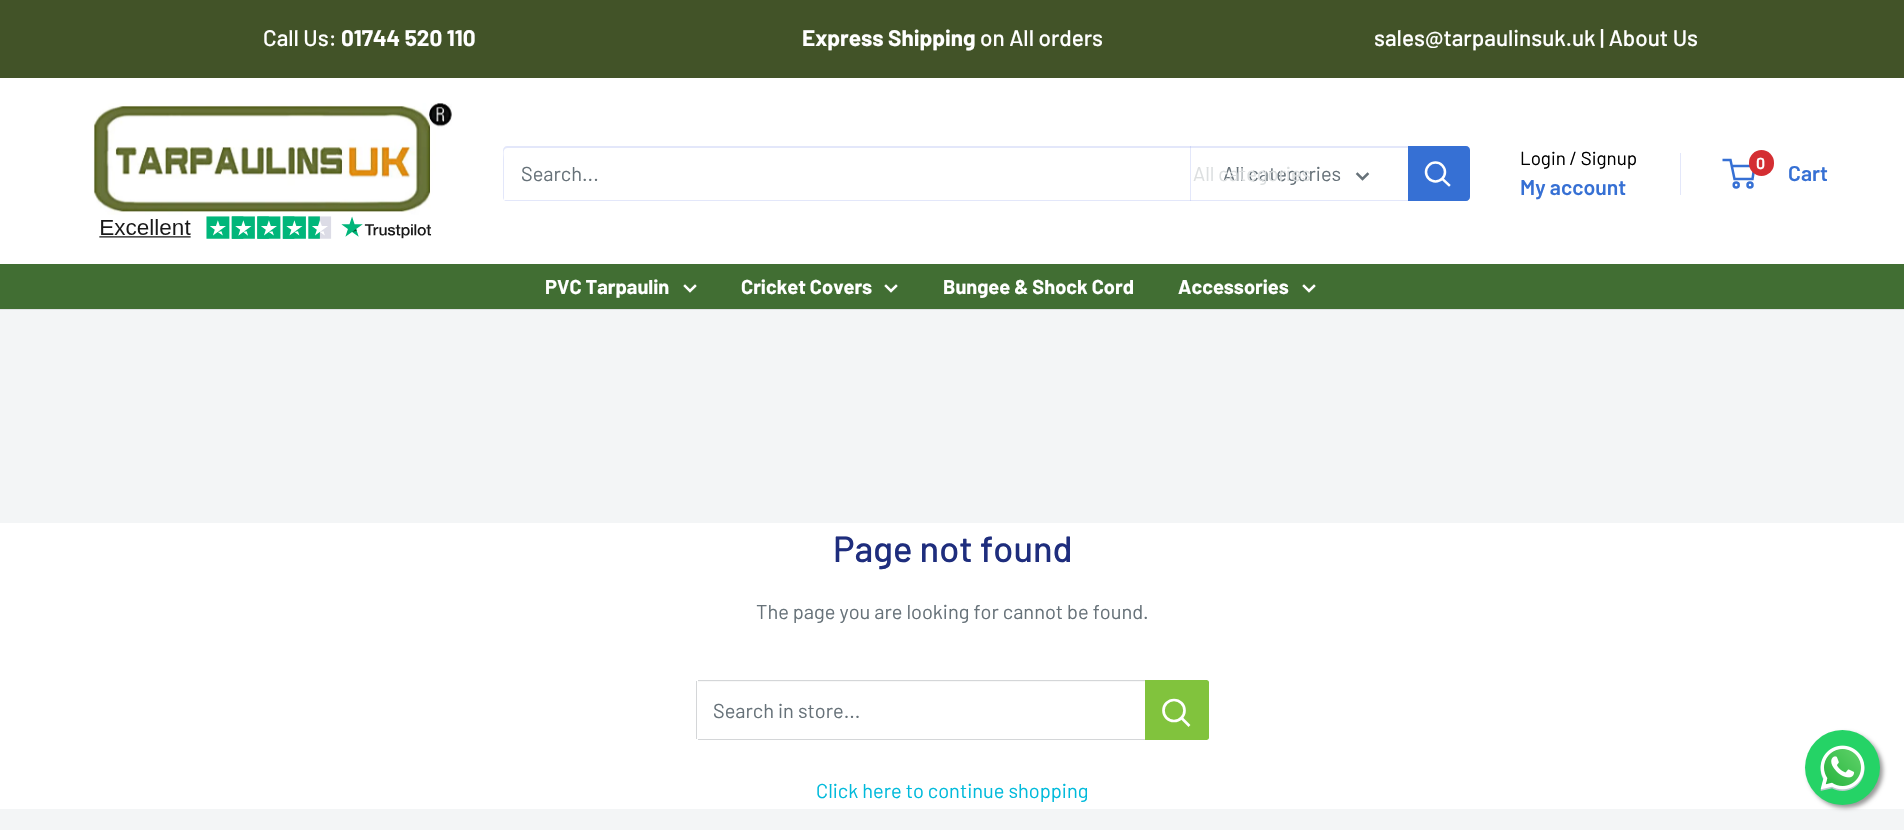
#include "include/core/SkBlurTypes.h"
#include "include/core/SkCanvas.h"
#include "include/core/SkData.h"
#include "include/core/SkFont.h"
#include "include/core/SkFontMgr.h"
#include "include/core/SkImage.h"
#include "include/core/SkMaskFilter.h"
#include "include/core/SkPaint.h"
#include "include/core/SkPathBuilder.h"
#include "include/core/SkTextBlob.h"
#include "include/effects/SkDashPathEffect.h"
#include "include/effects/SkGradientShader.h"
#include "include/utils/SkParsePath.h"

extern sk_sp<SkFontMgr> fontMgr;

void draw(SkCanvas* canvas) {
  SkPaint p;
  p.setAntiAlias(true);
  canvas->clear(SkColorSetRGB(243, 245, 246));
  p.setColor(SkColorSetRGB(66, 83, 40));
  canvas->drawRect(SkRect::MakeLTRB(0, 0, 1904, 78), p);
  p.setColor(SK_ColorWHITE);
  canvas->drawRect(SkRect::MakeLTRB(0, 78, 1904, 264), p);
  canvas->drawImageRect(SkImages::DeferredFromEncodedData(SkData::MakeFromFileName("images/1.png")), SkRect::MakeLTRB(93, 103, 452, 215), SkSamplingOptions());
  canvas->drawImageRect(SkImages::DeferredFromEncodedData(SkData::MakeFromFileName("images/2.png")), SkRect::MakeLTRB(99, 216, 432, 239), SkSamplingOptions());
  p.setColor(SkColorSetRGB(227, 231, 250));
  canvas->drawPath(SkPathBuilder().moveTo(504, 200).cubicTo(505, 201, 506, 201, 507, 201).lineTo(1466, 201).cubicTo(1468, 201, 1470, 199, 1470, 197).lineTo(1470, 150).cubicTo(1470, 149, 1469, 147, 1468, 147).lineTo(1469, 149).lineTo(1469, 196).cubicTo(1469, 198, 1467, 200, 1465, 200).close().detach(), p);
  p.setColor(SkColorSetARGB(77, 163, 175, 239));
  canvas->drawPath(SkPathBuilder().moveTo(508, 148).lineTo(1470, 148).cubicTo(1469, 147, 1468, 146, 1466, 146).lineTo(507, 146).cubicTo(505, 146, 503, 148, 503, 150).lineTo(503, 197).cubicTo(503, 198, 503, 199, 504, 200).lineTo(504, 159).cubicTo(504, 154, 502, 148, 508, 148).close().detach(), p);
  canvas->drawRect(SkRect::MakeLTRB(1190, 146, 1191, 201), p);
  p.setStyle(SkPaint::kStroke_Style);
  p.setStrokeWidth(2.5f);
  p.setStrokeCap(SkPaint::kSquare_Cap);
  p.setColor(SkColorSetRGB(103, 114, 121));
  canvas->drawPath(SkPathBuilder().moveTo(1367.5f, 174).lineTo(1362.5f, 179).lineTo(1357.5f, 174).detach(), p);
  p.setStyle(SkPaint::kFill_Style);
  p.setColor(SkColorSetRGB(54, 112, 212));
  canvas->drawPath(SkPathBuilder().moveTo(1408, 146).lineTo(1466, 146).cubicTo(1468, 146, 1470, 148, 1470, 150).lineTo(1470, 197).cubicTo(1470, 199, 1468, 201, 1466, 201).lineTo(1408, 201).close().detach(), p);
  p.setStyle(SkPaint::kStroke_Style);
  p.setColor(SK_ColorWHITE);
  canvas->drawPath(SkPathBuilder().moveTo(1449, 185).lineTo(1442.5f, 179).detach(), p);
  p.setStrokeCap(SkPaint::kButt_Cap);
  canvas->drawCircle(1435.5f, 172, 9.5f, p);
  p.setStyle(SkPaint::kFill_Style);
  p.setColor(SkColorSetRGB(227, 231, 250));
  canvas->drawRect(SkRect::MakeLTRB(1680, 153, 1681, 195), p);
  p.setStyle(SkPaint::kStroke_Style);
  p.setColor(SkColorSetRGB(54, 112, 212));
  canvas->drawCircle(1736.2f, 185, 2.5f, p);
  canvas->drawCircle(1750, 185, 2.5f, p);
  canvas->drawPath(SkPathBuilder().moveTo(1731.5f, 166).lineTo(1754.5f, 166).lineTo(1752.5f, 179).lineTo(1734.5f, 179).lineTo(1730.5f, 160).lineTo(1722.5f, 160).detach(), p);
  p.setStyle(SkPaint::kFill_Style);
  p.setColor(SkColorSetRGB(212, 46, 50));
  canvas->drawRoundRect(SkRect::MakeLTRB(1749, 150, 1774, 176), 12.5f, 12.5f, p);
  p.setColor(SkColorSetRGB(225, 227, 228));
  canvas->drawRect(SkRect::MakeLTRB(0, 309, 1904, 310), p);
  p.setColor(SkColorSetRGB(65, 110, 51));
  canvas->drawRect(SkRect::MakeLTRB(0, 264, 1904, 309), p);
  p.setStyle(SkPaint::kStroke_Style);
  p.setStrokeCap(SkPaint::kSquare_Cap);
  p.setColor(SK_ColorWHITE);
  canvas->drawPath(SkPathBuilder().moveTo(695, 286).lineTo(690, 291).lineTo(685, 286).detach(), p);
  canvas->drawPath(SkPathBuilder().moveTo(896, 286).lineTo(891, 291).lineTo(886, 286).detach(), p);
  canvas->drawPath(SkPathBuilder().moveTo(1314, 286).lineTo(1309, 291).lineTo(1304, 286).detach(), p);
  p.setStyle(SkPaint::kFill_Style);
  canvas->drawRect(SkRect::MakeLTRB(0, 523, 1904, 809), p);
  p.setColor(SkColorSetRGB(248, 248, 248));
  canvas->drawPath(SkPathBuilder().moveTo(699, 682).lineTo(1145, 682).lineTo(1145, 681).lineTo(698, 681).lineTo(698, 684).cubicTo(698, 683, 698, 682, 699, 682).close().detach(), p);
  p.setColor(SkColorSetRGB(212, 214, 216));
  canvas->drawRect(SkRect::MakeLTRB(698, 680, 1145, 681), p);
  canvas->drawRect(SkRect::MakeLTRB(698, 739, 1145, 740), p);
  canvas->drawRect(SkRect::MakeLTRB(696, 681, 697, 739), p);
  p.setColor(SkColorSetRGB(129, 195, 61));
  canvas->drawPath(SkPathBuilder().moveTo(1145, 680).lineTo(1206.5f, 680).cubicTo(1208, 680, 1209, 681, 1209, 682.5f).lineTo(1209, 737.5f).cubicTo(1209, 739, 1208, 740, 1206.5f, 740).lineTo(1145, 740).close().detach(), p);
  p.setStyle(SkPaint::kStroke_Style);
  p.setStrokeWidth(2.7f);
  p.setColor(SK_ColorWHITE);
  canvas->drawPath(SkPathBuilder().moveTo(1188.5f, 725).lineTo(1181.5f, 718).detach(), p);
  p.setStrokeCap(SkPaint::kButt_Cap);
  canvas->drawCircle(1174, 710.5f, 10.5f, p);
  p.setStyle(SkPaint::kFill_Style);
  p.setColor(SkColorSetRGB(153, 153, 153));
  p.setMaskFilter(SkMaskFilter::MakeBlur(kNormal_SkBlurStyle, 2));
  canvas->drawRoundRect(SkRect::MakeLTRB(1808, 733, 1883, 808), 37.5f, 37.5f, p);
  p.setMaskFilter(nullptr);
  p.setColor(SkColorSetRGB(37, 211, 102));
  canvas->drawCircle(1842.5f, 767.5f, 37.5f, p);
  canvas->drawImageRect(SkImages::DeferredFromEncodedData(SkData::MakeFromFileName("images/3.png")), SkRect::MakeLTRB(1820, 745, 1865, 791), SkSamplingOptions());
  SkFont font1(fontMgr->matchFamilyStyle("Barlow", SkFontStyle(500, SkFontStyle::kNormal_Width, SkFontStyle::kUpright_Slant)), 22.5f);
  font1.setSubpixel(true);
  p.setColor(SK_ColorWHITE);
  canvas->drawString("Call Us:", 263, 46, font1, p);
  SkFont font2(fontMgr->matchFamilyStyle("Barlow", SkFontStyle::Bold()), 22.5f);
  font2.setSubpixel(true);
  canvas->drawString("01744 520 110", 341, 46, font2, p);
  canvas->drawString("Express Shipping", 802, 46, font2, p);
  canvas->drawString("on All orders", 980, 46, font1, p);
  canvas->drawString("sales@tarpaulinsuk.uk | About Us", 1374, 46, font1, p);
  SkFont font3(fontMgr->matchFamilyStyle("Barlow", SkFontStyle::Normal()), 20);
  font3.setSubpixel(true);
  p.setColor(SkColorSetRGB(103, 114, 121));
  canvas->drawString("Search...", 521, 181, font3, p);
  canvas->drawString("All categories", 1223, 181, font3, p);
  p.setColor(SkColorSetRGB(220, 223, 224));
  canvas->drawString("All categories", 1193, 181, font3, p);
  SkFont font4(fontMgr->matchFamilyStyle("Barlow", SkFontStyle::Normal()), 18.75f);
  font4.setSubpixel(true);
  p.setColor(SK_ColorBLACK);
  canvas->drawString("Login / Signup", 1520, 165, font4, p);
  SkFont font5(fontMgr->matchFamilyStyle("Barlow", SkFontStyle(600, SkFontStyle::kNormal_Width, SkFontStyle::kUpright_Slant)), 21.25f);
  font5.setSubpixel(true);
  p.setColor(SkColorSetRGB(54, 112, 212));
  canvas->drawString("My account", 1520, 195, font5, p);
  SkFont font6(fontMgr->matchFamilyStyle("Barlow", SkFontStyle(600, SkFontStyle::kNormal_Width, SkFontStyle::kUpright_Slant)), 16);
  font6.setSubpixel(true);
  p.setColor(SK_ColorWHITE);
  canvas->drawString("0", 1756, 169, font6, p);
  p.setColor(SkColorSetRGB(54, 112, 212));
  canvas->drawString("Cart", 1788, 181, font5, p);
  SkFont font7(fontMgr->matchFamilyStyle("Barlow", SkFontStyle::Bold()), 20);
  font7.setSubpixel(true);
  p.setColor(SK_ColorWHITE);
  canvas->drawString("PVC Tarpaulin", 545, 294, font7, p);
  canvas->drawString("Cricket Covers", 741, 294, font7, p);
  canvas->drawString("Bungee & Shock Cord", 943, 294, font7, p);
  canvas->drawString("Accessories", 1178, 294, font7, p);
  SkFont font8(fontMgr->matchFamilyStyle("Barlow", SkFontStyle(500, SkFontStyle::kNormal_Width, SkFontStyle::kUpright_Slant)), 36.25f);
  font8.setSubpixel(true);
  p.setColor(SkColorSetRGB(30, 45, 125));
  canvas->drawString("Page not found", 833, 562, font8, p);
  p.setColor(SkColorSetRGB(103, 114, 121));
  canvas->drawString("The page you are looking for cannot be found.", 756, 619, font3, p);
  canvas->drawString("Search in store...", 713, 718, font3, p);
  p.setColor(SkColorSetRGB(0, 186, 219));
  canvas->drawString("Click here to continue shopping", 816, 798, font3, p);
}
